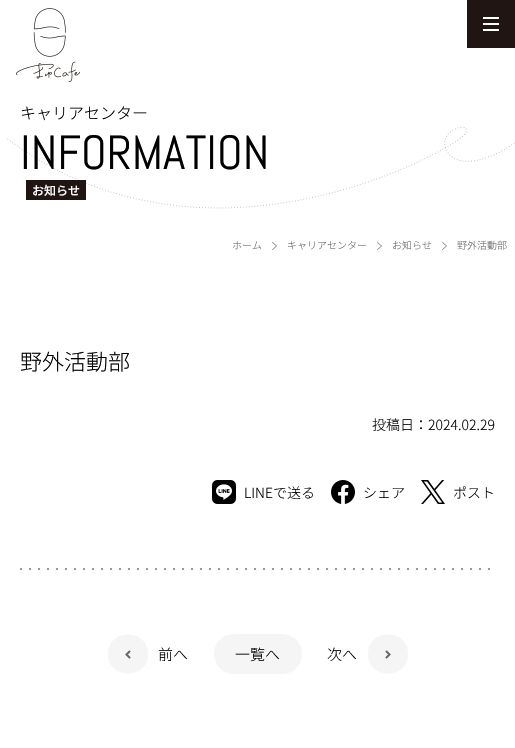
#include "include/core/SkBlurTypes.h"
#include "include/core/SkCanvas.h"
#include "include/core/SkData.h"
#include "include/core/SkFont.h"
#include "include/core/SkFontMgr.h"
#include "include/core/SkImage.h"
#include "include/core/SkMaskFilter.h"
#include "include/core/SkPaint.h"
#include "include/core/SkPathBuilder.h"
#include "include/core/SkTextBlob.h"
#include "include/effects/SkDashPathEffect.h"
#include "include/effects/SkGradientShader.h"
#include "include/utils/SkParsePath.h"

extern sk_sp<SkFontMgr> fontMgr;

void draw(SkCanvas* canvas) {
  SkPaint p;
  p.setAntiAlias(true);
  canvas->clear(SK_ColorWHITE);
  canvas->drawImageRect(SkImages::DeferredFromEncodedData(SkData::MakeFromFileName("images/1.png")), SkRect::MakeLTRB(16, 8, 80, 82), SkSamplingOptions());
  p.setColor(SkColorSetRGB(32, 21, 18));
  canvas->drawRect(SkRect::MakeLTRB(467, 0, 515, 48), p);
  p.setColor(SK_ColorWHITE);
  canvas->drawRect(SkRect::MakeLTRB(483, 23, 499, 25), p);
  canvas->drawRect(SkRect::MakeLTRB(483, 17, 499, 19), p);
  canvas->drawRect(SkRect::MakeLTRB(483, 29, 499, 31), p);
  p.setStyle(SkPaint::kStroke_Style);
  p.setStrokeWidth(0.7f);
  p.setStrokeCap(SkPaint::kRound_Cap);
  p.setColor(SkColorSetRGB(153, 153, 153));
  p.setPathEffect(SkDashPathEffect::Make({{0, 2.91f}}, 0));
  canvas->drawPath(SkPathBuilder().moveTo(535.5f, 123.5f).cubicTo(510, 154.5f, 460, 174.5f, 447, 151).cubicTo(434.5f, 127.5f, 478.5f, 119.5f, 463, 136).cubicTo(447.5f, 152, 206, 288, 7, 138.5f).detach(), p);
  p.setPathEffect(nullptr);
  p.setStyle(SkPaint::kFill_Style);
  p.setColor(SkColorSetRGB(32, 21, 18));
  canvas->drawRect(SkRect::MakeLTRB(26, 180, 86, 200), p);
  canvas->drawImageRect(SkImages::DeferredFromEncodedData(SkData::MakeFromFileName("images/2.png")), SkRect::MakeLTRB(272, 242, 277, 250), SkSamplingOptions());
  canvas->drawImageRect(SkImages::DeferredFromEncodedData(SkData::MakeFromFileName("images/2.png")), SkRect::MakeLTRB(377, 242, 382, 250), SkSamplingOptions());
  canvas->drawImageRect(SkImages::DeferredFromEncodedData(SkData::MakeFromFileName("images/2.png")), SkRect::MakeLTRB(442, 242, 447, 250), SkSamplingOptions());
  canvas->drawImageRect(SkImages::DeferredFromEncodedData(SkData::MakeFromFileName("images/3.png")), SkRect::MakeLTRB(20, 568, 490, 570), SkSamplingOptions());
  canvas->drawImageRect(SkImages::DeferredFromEncodedData(SkData::MakeFromFileName("images/4.png")), SkRect::MakeLTRB(212, 480, 236, 504), SkSamplingOptions());
  canvas->drawImageRect(SkImages::DeferredFromEncodedData(SkData::MakeFromFileName("images/5.png")), SkRect::MakeLTRB(331, 480, 355, 504), SkSamplingOptions());
  canvas->drawImageRect(SkImages::DeferredFromEncodedData(SkData::MakeFromFileName("images/6.png")), SkRect::MakeLTRB(421, 480, 445, 504), SkSamplingOptions());
  p.setColor(SkColorSetRGB(245, 245, 245));
  canvas->drawPath(SkPathBuilder().moveTo(148, 654).cubicTo(148, 680, 108, 680, 108, 654).cubicTo(108, 628, 148, 628, 148, 654).close().detach(), p);
  p.setStyle(SkPaint::kStroke_Style);
  p.setStrokeWidth(2);
  p.setColor(SkColorSetRGB(102, 102, 102));
  canvas->drawPath(SkPathBuilder().moveTo(129.5f, 657.5f).lineTo(126.5f, 654.5f).lineTo(129.5f, 651.5f).detach(), p);
  p.setStyle(SkPaint::kFill_Style);
  p.setColor(SkColorSetRGB(245, 245, 245));
  canvas->drawRoundRect(SkRect::MakeLTRB(214, 634, 302, 674), 20, 20, p);
  canvas->drawPath(SkPathBuilder().moveTo(408, 654).cubicTo(408, 680, 368, 680, 368, 654).cubicTo(368, 628, 408, 628, 408, 654).close().detach(), p);
  p.setStyle(SkPaint::kStroke_Style);
  p.setColor(SkColorSetRGB(102, 102, 102));
  canvas->drawPath(SkPathBuilder().moveTo(386.5f, 657.5f).lineTo(389.5f, 654.5f).lineTo(386.5f, 651.5f).detach(), p);
  SkFont font1(fontMgr->matchFamilyStyle("Noto Sans JP", SkFontStyle(300, SkFontStyle::kNormal_Width, SkFontStyle::kUpright_Slant)), 16);
  font1.setSubpixel(true);
  p.setStyle(SkPaint::kFill_Style);
  p.setColor(SK_ColorBLACK);
  canvas->drawString("キャリアセンター", 20, 119, font1, p);
  SkFont font2(fontMgr->matchFamilyStyle("Abel", SkFontStyle::Normal()), 48);
  font2.setSubpixel(true);
  canvas->drawString("INFORMATION", 20, 169, font2, p);
  SkFont font3(fontMgr->matchFamilyStyle("Noto Sans JP", SkFontStyle(500, SkFontStyle::kNormal_Width, SkFontStyle::kUpright_Slant)), 12);
  font3.setSubpixel(true);
  p.setColor(SK_ColorWHITE);
  canvas->drawString("お知らせ", 32, 195, font3, p);
  SkFont font4(fontMgr->matchFamilyStyle("Noto Sans JP", SkFontStyle(300, SkFontStyle::kNormal_Width, SkFontStyle::kUpright_Slant)), 10);
  font4.setSubpixel(true);
  p.setColor(SkColorSetRGB(102, 102, 102));
  canvas->drawString("ホーム", 232, 249, font4, p);
  canvas->drawString("キャリアセンター", 287, 249, font4, p);
  canvas->drawString("お知らせ", 392, 249, font4, p);
  canvas->drawString("野外活動部", 457, 249, font4, p);
  SkFont font5(fontMgr->matchFamilyStyle("Noto Sans JP", SkFontStyle(300, SkFontStyle::kNormal_Width, SkFontStyle::kUpright_Slant)), 22);
  font5.setSubpixel(true);
  p.setColor(SK_ColorBLACK);
  canvas->drawString("野外活動部", 20, 370, font5, p);
  SkFont font6(fontMgr->matchFamilyStyle("Noto Sans JP", SkFontStyle(300, SkFontStyle::kNormal_Width, SkFontStyle::kUpright_Slant)), 14);
  font6.setSubpixel(true);
  canvas->drawString("投稿日：2024.02.29", 372, 430, font6, p);
  canvas->drawString("LINEで送る", 244, 498, font6, p);
  canvas->drawString("シェア", 363, 498, font6, p);
  canvas->drawString("ポスト", 453, 498, font6, p);
  SkFont font7(fontMgr->matchFamilyStyle("Noto Sans JP", SkFontStyle(300, SkFontStyle::kNormal_Width, SkFontStyle::kUpright_Slant)), 15);
  font7.setSubpixel(true);
  canvas->drawString("前へ", 158, 660, font7, p);
  canvas->drawString("一覧へ", 235, 660, font7, p);
  canvas->drawString("次へ", 327, 660, font7, p);
}
